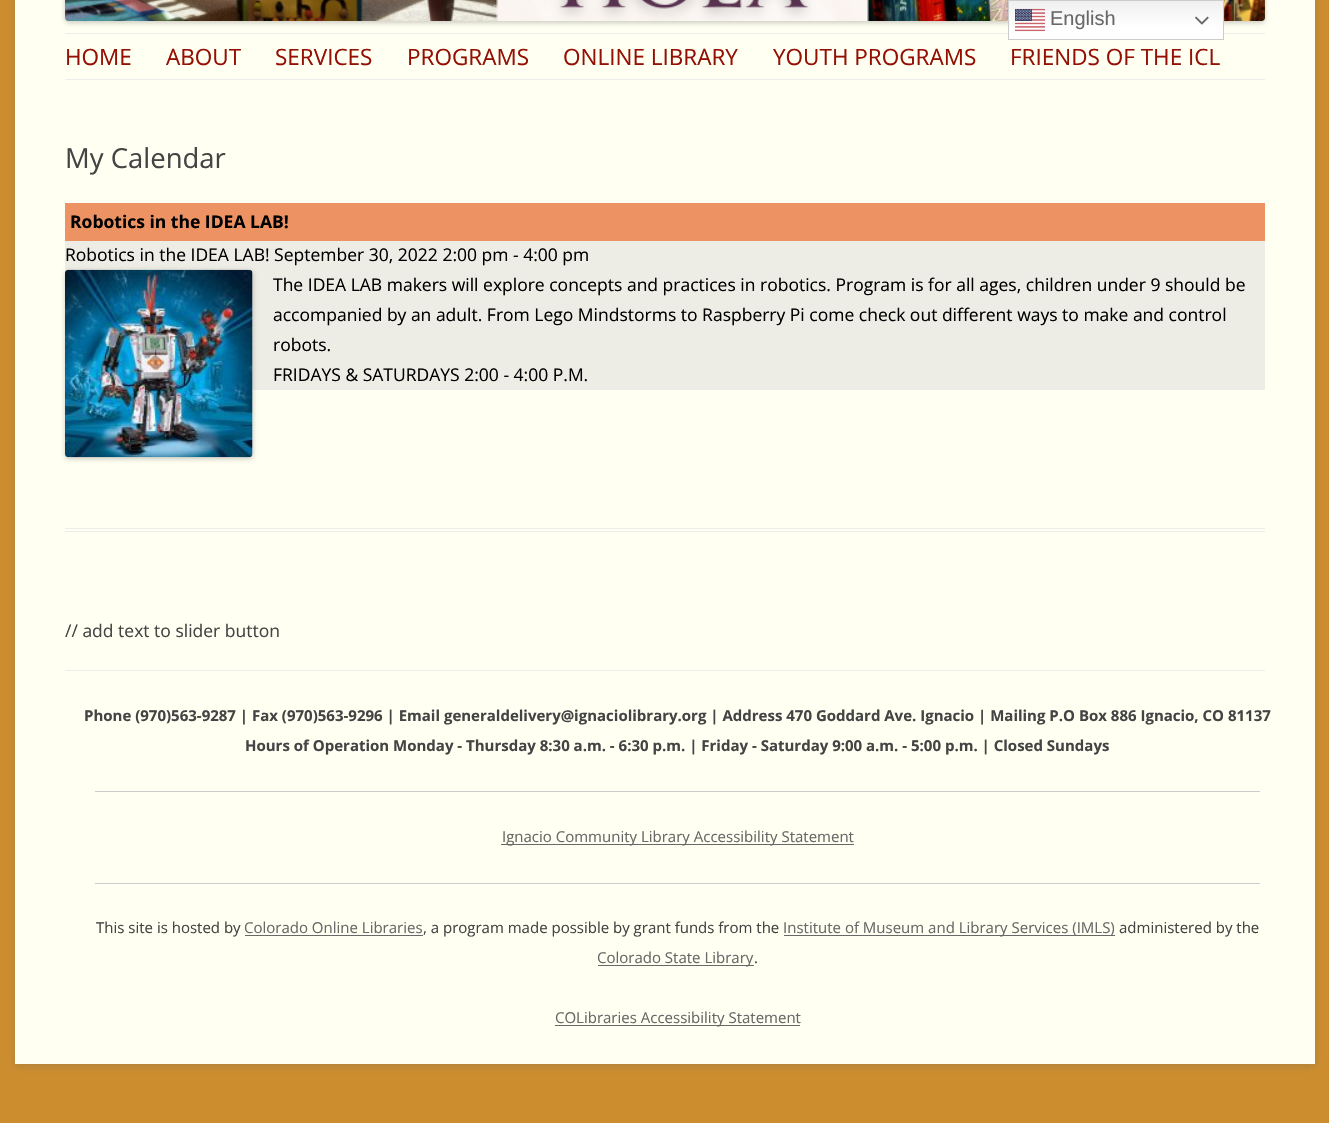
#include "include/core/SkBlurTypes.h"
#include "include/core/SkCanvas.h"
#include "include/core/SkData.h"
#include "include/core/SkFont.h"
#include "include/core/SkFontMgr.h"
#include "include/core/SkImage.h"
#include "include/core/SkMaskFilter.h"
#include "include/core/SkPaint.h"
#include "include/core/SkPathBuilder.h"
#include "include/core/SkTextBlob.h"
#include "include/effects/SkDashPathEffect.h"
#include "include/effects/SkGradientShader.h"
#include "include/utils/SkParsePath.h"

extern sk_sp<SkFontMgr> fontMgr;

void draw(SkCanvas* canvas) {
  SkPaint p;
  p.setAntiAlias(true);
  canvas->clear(SkColorSetRGB(204, 141, 46));
  p.setColor(SkColorSetARGB(77, 100, 100, 100));
  p.setMaskFilter(SkMaskFilter::MakeBlur(kNormal_SkBlurStyle, 4));
  canvas->drawRect(SkRect::MakeLTRB(15, -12, 1315, 1066), p);
  p.setMaskFilter(nullptr);
  p.setColor(SkColorSetRGB(255, 255, 242));
  canvas->drawRect(SkRect::MakeLTRB(15, 0, 1315, 1064), p);
  p.setColor(SkColorSetARGB(51, 0, 0, 0));
  p.setMaskFilter(SkMaskFilter::MakeBlur(kNormal_SkBlurStyle, 2.5f));
  canvas->drawRoundRect(SkRect::MakeLTRB(65, -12, 1265, 23), 4, 4, p);
  p.setMaskFilter(nullptr);
  canvas->drawImageRect(SkImages::DeferredFromEncodedData(SkData::MakeFromFileName("images/3.png")), SkRect::MakeLTRB(65, 0, 1265, 21), SkSamplingOptions());
  p.setColor(SkColorSetRGB(237, 237, 237));
  canvas->drawRect(SkRect::MakeLTRB(65, 33, 1265, 34), p);
  {
    const SkColor colors[] = {SkColorSetRGB(239, 239, 239), SK_ColorWHITE};
    const float stops[] = {0, 0.7f};
    const SkPoint ends[] = {{1116, 0}, {1116, 40}};
    p.setShader(SkGradientShader::MakeLinear(ends, colors, stops, 2, SkTileMode::kClamp));
    p.setAlpha(255);
  }
  canvas->drawRect(SkRect::MakeLTRB(1009, 1, 1223, 39), p);
  p.setStyle(SkPaint::kStroke_Style);
  p.setStrokeWidth(1);
  p.setShader(nullptr);
  p.setColor(SkColorSetRGB(204, 204, 204));
  canvas->drawRect(SkRect::MakeLTRB(1008.5f, 0.5f, 1223.5f, 39.5f), p);
  canvas->drawImageRect(SkImages::DeferredFromEncodedData(SkData::MakeFromFileName("images/1.png")), SkRect::MakeLTRB(1015, 8, 1045, 32), SkSamplingOptions());
  canvas->drawImageRect(SkImages::DeferredFromEncodedData(SkData::MakeFromFileName("images/2.png")), SkRect::MakeLTRB(1195, 16, 1209, 25), SkSamplingOptions());
  p.setStyle(SkPaint::kFill_Style);
  p.setColor(SkColorSetRGB(237, 237, 237));
  canvas->drawRect(SkRect::MakeLTRB(65, 79, 1265, 80), p);
  canvas->drawRect(SkRect::MakeLTRB(65, 528, 1265, 529), p);
  canvas->drawRect(SkRect::MakeLTRB(65, 531, 1265, 532), p);
  p.setColor(SkColorSetRGB(237, 147, 99));
  canvas->drawRect(SkRect::MakeLTRB(65, 203, 1265, 241), p);
  p.setColor(SkColorSetRGB(237, 237, 230));
  canvas->drawRect(SkRect::MakeLTRB(65, 241, 1265, 390), p);
  p.setColor(SkColorSetARGB(51, 0, 0, 0));
  p.setMaskFilter(SkMaskFilter::MakeBlur(kNormal_SkBlurStyle, 2.5f));
  canvas->drawRoundRect(SkRect::MakeLTRB(65, 271, 253, 459), 4, 4, p);
  p.setMaskFilter(nullptr);
  canvas->drawImageRect(SkImages::DeferredFromEncodedData(SkData::MakeFromFileName("images/4.png")), SkRect::MakeLTRB(65, 269, 253, 458), SkSamplingOptions());
  p.setColor(SkColorSetRGB(237, 237, 237));
  canvas->drawRect(SkRect::MakeLTRB(65, 670, 1265, 671), p);
  p.setColor(SkColorSetRGB(204, 204, 204));
  canvas->drawRect(SkRect::MakeLTRB(95, 791, 1260, 792), p);
  p.setColor(SkColorSetRGB(104, 104, 104));
  canvas->drawRect(SkRect::MakeLTRB(501, 844, 854, 845), p);
  p.setColor(SkColorSetRGB(204, 204, 204));
  canvas->drawRect(SkRect::MakeLTRB(95, 883, 1260, 884), p);
  p.setColor(SkColorSetRGB(104, 104, 104));
  canvas->drawRect(SkRect::MakeLTRB(245, 935, 423, 936), p);
  canvas->drawRect(SkRect::MakeLTRB(784, 935, 1115, 936), p);
  canvas->drawRect(SkRect::MakeLTRB(598, 965, 754, 966), p);
  canvas->drawRect(SkRect::MakeLTRB(555, 1025, 800, 1026), p);
  SkFont font1(fontMgr->matchFamilyStyle("Liberation Sans", SkFontStyle::Normal()), 20);
  font1.setSubpixel(true);
  canvas->drawString("English", 1050, 25, font1, p);
  SkFont font2(fontMgr->matchFamilyStyle("Open Sans", SkFontStyle::Normal()), 22.5f);
  font2.setSubpixel(true);
  p.setColor(SkColorSetRGB(148, 15, 4));
  canvas->drawString("HOME", 65, 65, font2, p);
  canvas->drawString("ABOUT", 166, 65, font2, p);
  canvas->drawString("SERVICES", 275, 65, font2, p);
  canvas->drawString("PROGRAMS", 407, 65, font2, p);
  canvas->drawString("ONLINE LIBRARY", 563, 65, font2, p);
  canvas->drawString("YOUTH PROGRAMS", 773, 65, font2, p);
  canvas->drawString("FRIENDS OF THE ICL", 1010, 65, font2, p);
  SkFont font3(fontMgr->matchFamilyStyle("Open Sans", SkFontStyle::Normal()), 27.5f);
  font3.setSubpixel(true);
  p.setColor(SkColorSetRGB(68, 68, 68));
  canvas->drawString("My Calendar", 65, 168, font3, p);
  SkFont font4(fontMgr->matchFamilyStyle("Open Sans", SkFontStyle::Bold()), 17.5f);
  font4.setSubpixel(true);
  p.setColor(SK_ColorBLACK);
  canvas->drawString("Robotics in the IDEA LAB!", 70, 228, font4, p);
  SkFont font5(fontMgr->matchFamilyStyle("Open Sans", SkFontStyle::Normal()), 17.5f);
  font5.setSubpixel(true);
  canvas->drawString("Robotics in the IDEA LAB! September 30, 2022 2:00 pm - 4:00 pm", 65, 261, font5, p);
  canvas->drawString("The IDEA LAB makers will explore concepts and practices in robotics. Program is for all ages, children under 9 should be", 273, 291, font5, p);
  canvas->drawString("accompanied by an adult. From Lego Mindstorms to Raspberry Pi come check out different ways to make and control", 273, 321, font5, p);
  canvas->drawString("robots.", 273, 351, font5, p);
  canvas->drawString("FRIDAYS & SATURDAYS 2:00 - 4:00 P.M.", 273, 381, font5, p);
  p.setColor(SkColorSetRGB(68, 68, 68));
  canvas->drawString("// add text to slider button", 65, 637, font5, p);
  SkFont font6(fontMgr->matchFamilyStyle("Open Sans", SkFontStyle::Bold()), 15);
  font6.setSubpixel(true);
  canvas->drawString("Phone (970)563-9287 | Fax (970)563-9296 | Email generaldelivery@ignaciolibrary.org | Address 470 Goddard Ave. Ignacio | Mailing P.O Box 886 Ignacio, CO 81137", 84, 721, font6, p);
  canvas->drawString("Hours of Operation Monday - Thursday 8:30 a.m. - 6:30 p.m. | Friday - Saturday 9:00 a.m. - 5:00 p.m. | Closed Sundays", 245, 751, font6, p);
  SkFont font7(fontMgr->matchFamilyStyle("Open Sans", SkFontStyle::Normal()), 15);
  font7.setSubpixel(true);
  p.setColor(SkColorSetRGB(104, 104, 104));
  canvas->drawString("Ignacio Community Library Accessibility Statement", 502, 842, font7, p);
  p.setColor(SkColorSetRGB(68, 68, 68));
  canvas->drawString("This site is hosted by", 96, 933, font7, p);
  p.setColor(SkColorSetRGB(104, 104, 104));
  canvas->drawString("Colorado Online Libraries", 244, 933, font7, p);
  p.setColor(SkColorSetRGB(68, 68, 68));
  canvas->drawString(", a program made possible by grant funds from the", 423, 933, font7, p);
  p.setColor(SkColorSetRGB(104, 104, 104));
  canvas->drawString("Institute of Museum and Library Services (IMLS)", 783, 933, font7, p);
  p.setColor(SkColorSetRGB(68, 68, 68));
  canvas->drawString("administered by the", 1119, 933, font7, p);
  p.setColor(SkColorSetRGB(104, 104, 104));
  canvas->drawString("Colorado State Library", 597, 963, font7, p);
  p.setColor(SkColorSetRGB(68, 68, 68));
  canvas->drawString(".", 754, 963, font7, p);
  p.setColor(SkColorSetRGB(104, 104, 104));
  canvas->drawString("COLibraries Accessibility Statement", 555, 1023, font7, p);
}
